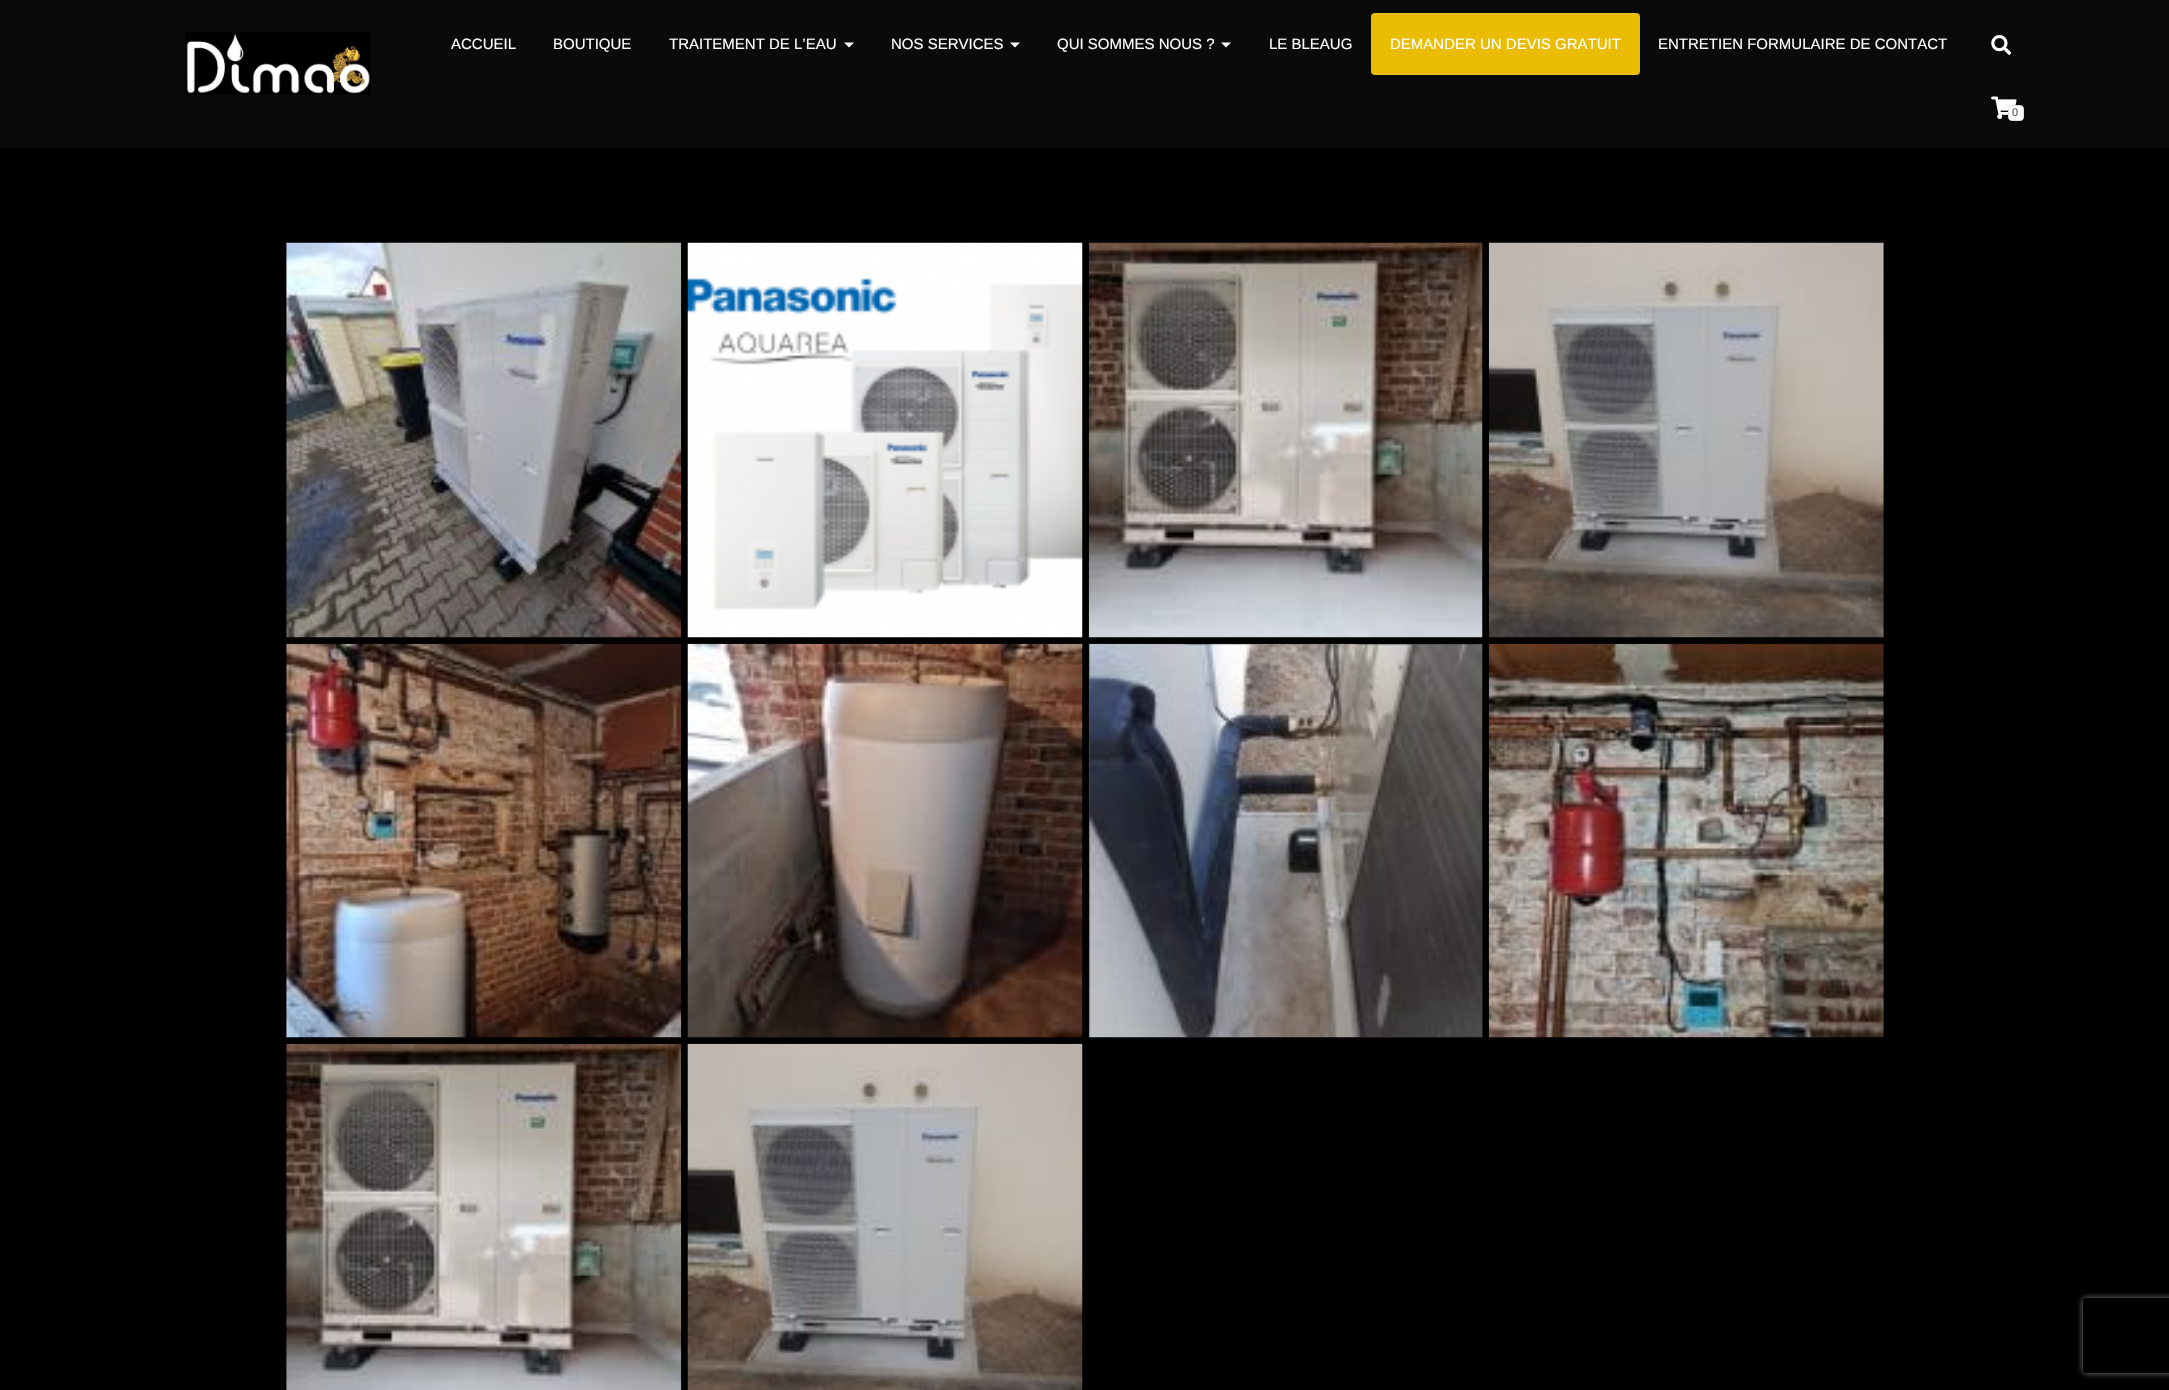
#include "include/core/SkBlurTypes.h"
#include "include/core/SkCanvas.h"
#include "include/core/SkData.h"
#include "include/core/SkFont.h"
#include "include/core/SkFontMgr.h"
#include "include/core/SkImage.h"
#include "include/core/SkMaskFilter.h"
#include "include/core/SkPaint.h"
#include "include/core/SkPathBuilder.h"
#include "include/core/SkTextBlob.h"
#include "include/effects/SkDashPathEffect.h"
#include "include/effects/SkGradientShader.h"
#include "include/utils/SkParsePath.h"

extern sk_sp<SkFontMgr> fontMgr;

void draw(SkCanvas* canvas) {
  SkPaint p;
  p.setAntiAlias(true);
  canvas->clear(SK_ColorBLACK);
  p.setColor(SkColorSetRGB(10, 10, 10));
  canvas->drawRect(SkRect::MakeLTRB(0, 0, 2169, 148), p);
  canvas->drawImageRect(SkImages::DeferredFromEncodedData(SkData::MakeFromFileName("images/1.png")), SkRect::MakeLTRB(185, 32, 371, 95), SkSamplingOptions());
  p.setColor(SK_ColorWHITE);
  canvas->drawPath(SkPathBuilder().moveTo(844, 42.5f).lineTo(854, 42.5f).lineTo(849, 47.5f).close().detach(), p);
  canvas->drawPath(SkPathBuilder().moveTo(1010, 42.5f).lineTo(1020, 42.5f).lineTo(1015, 47.5f).close().detach(), p);
  canvas->drawPath(SkPathBuilder().moveTo(1221, 42.5f).lineTo(1231, 42.5f).lineTo(1226, 47.5f).close().detach(), p);
  p.setColor(SkColorSetRGB(234, 188, 3));
  canvas->drawRoundRect(SkRect::MakeLTRB(1371, 13, 1640, 75), 4, 4, p);
  canvas->drawImageRect(SkImages::DeferredFromEncodedData(SkData::MakeFromFileName("images/2.png")), SkRect::MakeLTRB(1991, 35, 2011, 55), SkSamplingOptions());
  canvas->drawImageRect(SkImages::DeferredFromEncodedData(SkData::MakeFromFileName("images/3.png")), SkRect::MakeLTRB(1991, 96, 2017, 119), SkSamplingOptions());
  p.setColor(SK_ColorWHITE);
  canvas->drawRoundRect(SkRect::MakeLTRB(2008.5f, 105.5f, 2023.5f, 120.5f), 3.5f, 3.5f, p);
  p.setStyle(SkPaint::kStroke_Style);
  p.setStrokeWidth(1);
  p.setColor(SkColorSetRGB(221, 221, 221));
  canvas->drawRoundRect(SkRect::MakeLTRB(2008.5f, 105.5f, 2023.5f, 120.5f), 3.5f, 3.5f, p);
  canvas->drawImageRect(SkImages::DeferredFromEncodedData(SkData::MakeFromFileName("images/4.png")), SkRect::MakeLTRB(286, 242, 682, 638), SkSamplingOptions());
  canvas->drawImageRect(SkImages::DeferredFromEncodedData(SkData::MakeFromFileName("images/5.png")), SkRect::MakeLTRB(687, 242, 1083, 638), SkSamplingOptions());
  canvas->drawImageRect(SkImages::DeferredFromEncodedData(SkData::MakeFromFileName("images/6.png")), SkRect::MakeLTRB(1088, 242, 1483, 638), SkSamplingOptions());
  canvas->drawImageRect(SkImages::DeferredFromEncodedData(SkData::MakeFromFileName("images/7.png")), SkRect::MakeLTRB(1488, 242, 1884, 638), SkSamplingOptions());
  canvas->drawImageRect(SkImages::DeferredFromEncodedData(SkData::MakeFromFileName("images/8.png")), SkRect::MakeLTRB(286, 643, 682, 1038), SkSamplingOptions());
  canvas->drawImageRect(SkImages::DeferredFromEncodedData(SkData::MakeFromFileName("images/9.png")), SkRect::MakeLTRB(687, 643, 1083, 1038), SkSamplingOptions());
  canvas->drawImageRect(SkImages::DeferredFromEncodedData(SkData::MakeFromFileName("images/10.png")), SkRect::MakeLTRB(1088, 643, 1483, 1038), SkSamplingOptions());
  canvas->drawImageRect(SkImages::DeferredFromEncodedData(SkData::MakeFromFileName("images/11.png")), SkRect::MakeLTRB(1488, 643, 1884, 1038), SkSamplingOptions());
  canvas->drawImageRect(SkImages::DeferredFromEncodedData(SkData::MakeFromFileName("images/12.png")), SkRect::MakeLTRB(286, 1043, 682, 1390), SkSamplingOptions());
  canvas->drawImageRect(SkImages::DeferredFromEncodedData(SkData::MakeFromFileName("images/13.png")), SkRect::MakeLTRB(687, 1043, 1083, 1390), SkSamplingOptions());
  canvas->save();
  canvas->clipPath(SkPathBuilder(SkPathFillType::kEvenOdd).moveTo(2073, 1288).lineTo(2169, 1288).lineTo(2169, 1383).lineTo(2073, 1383).close().moveTo(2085.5f, 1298).lineTo(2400.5f, 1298).cubicTo(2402, 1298, 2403, 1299, 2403, 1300.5f).lineTo(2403, 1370.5f).cubicTo(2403, 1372, 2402, 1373, 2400.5f, 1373).lineTo(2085.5f, 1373).cubicTo(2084, 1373, 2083, 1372, 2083, 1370.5f).lineTo(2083, 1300.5f).cubicTo(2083, 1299, 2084, 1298, 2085.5f, 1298).close().detach(), true);
  p.setStyle(SkPaint::kFill_Style);
  p.setColor(SkColorSetRGB(128, 128, 128));
  p.setMaskFilter(SkMaskFilter::MakeBlur(kNormal_SkBlurStyle, 3));
  canvas->drawRoundRect(SkRect::MakeLTRB(2083, 1298, 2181, 1373), 2.5f, 2.5f, p);
  p.setMaskFilter(nullptr);
  canvas->restore();
  SkFont font1(fontMgr->matchFamilyStyle("Liberation Sans", SkFontStyle::Normal()), 15);
  font1.setSubpixel(true);
  p.setColor(SK_ColorWHITE);
  canvas->drawString("ACCUEIL", 451, 49, font1, p);
  canvas->drawString("BOUTIQUE", 553, 49, font1, p);
  canvas->drawString("TRAITEMENT DE L’EAU", 669, 49, font1, p);
  canvas->drawString("NOS SERVICES", 891, 49, font1, p);
  canvas->drawString("QUI SOMMES NOUS ?", 1057, 49, font1, p);
  canvas->drawString("LE BLEAUG", 1269, 49, font1, p);
  canvas->drawString("DEMANDER UN DEVIS GRATUIT", 1390, 49, font1, p);
  canvas->drawString("ENTRETIEN FORMULAIRE DE CONTACT", 1658, 49, font1, p);
  SkFont font2(fontMgr->matchFamilyStyle("Liberation Sans", SkFontStyle::Normal()), 11);
  font2.setSubpixel(true);
  p.setColor(SkColorSetRGB(85, 85, 85));
  canvas->drawString("0", 2012, 116, font2, p);
}
